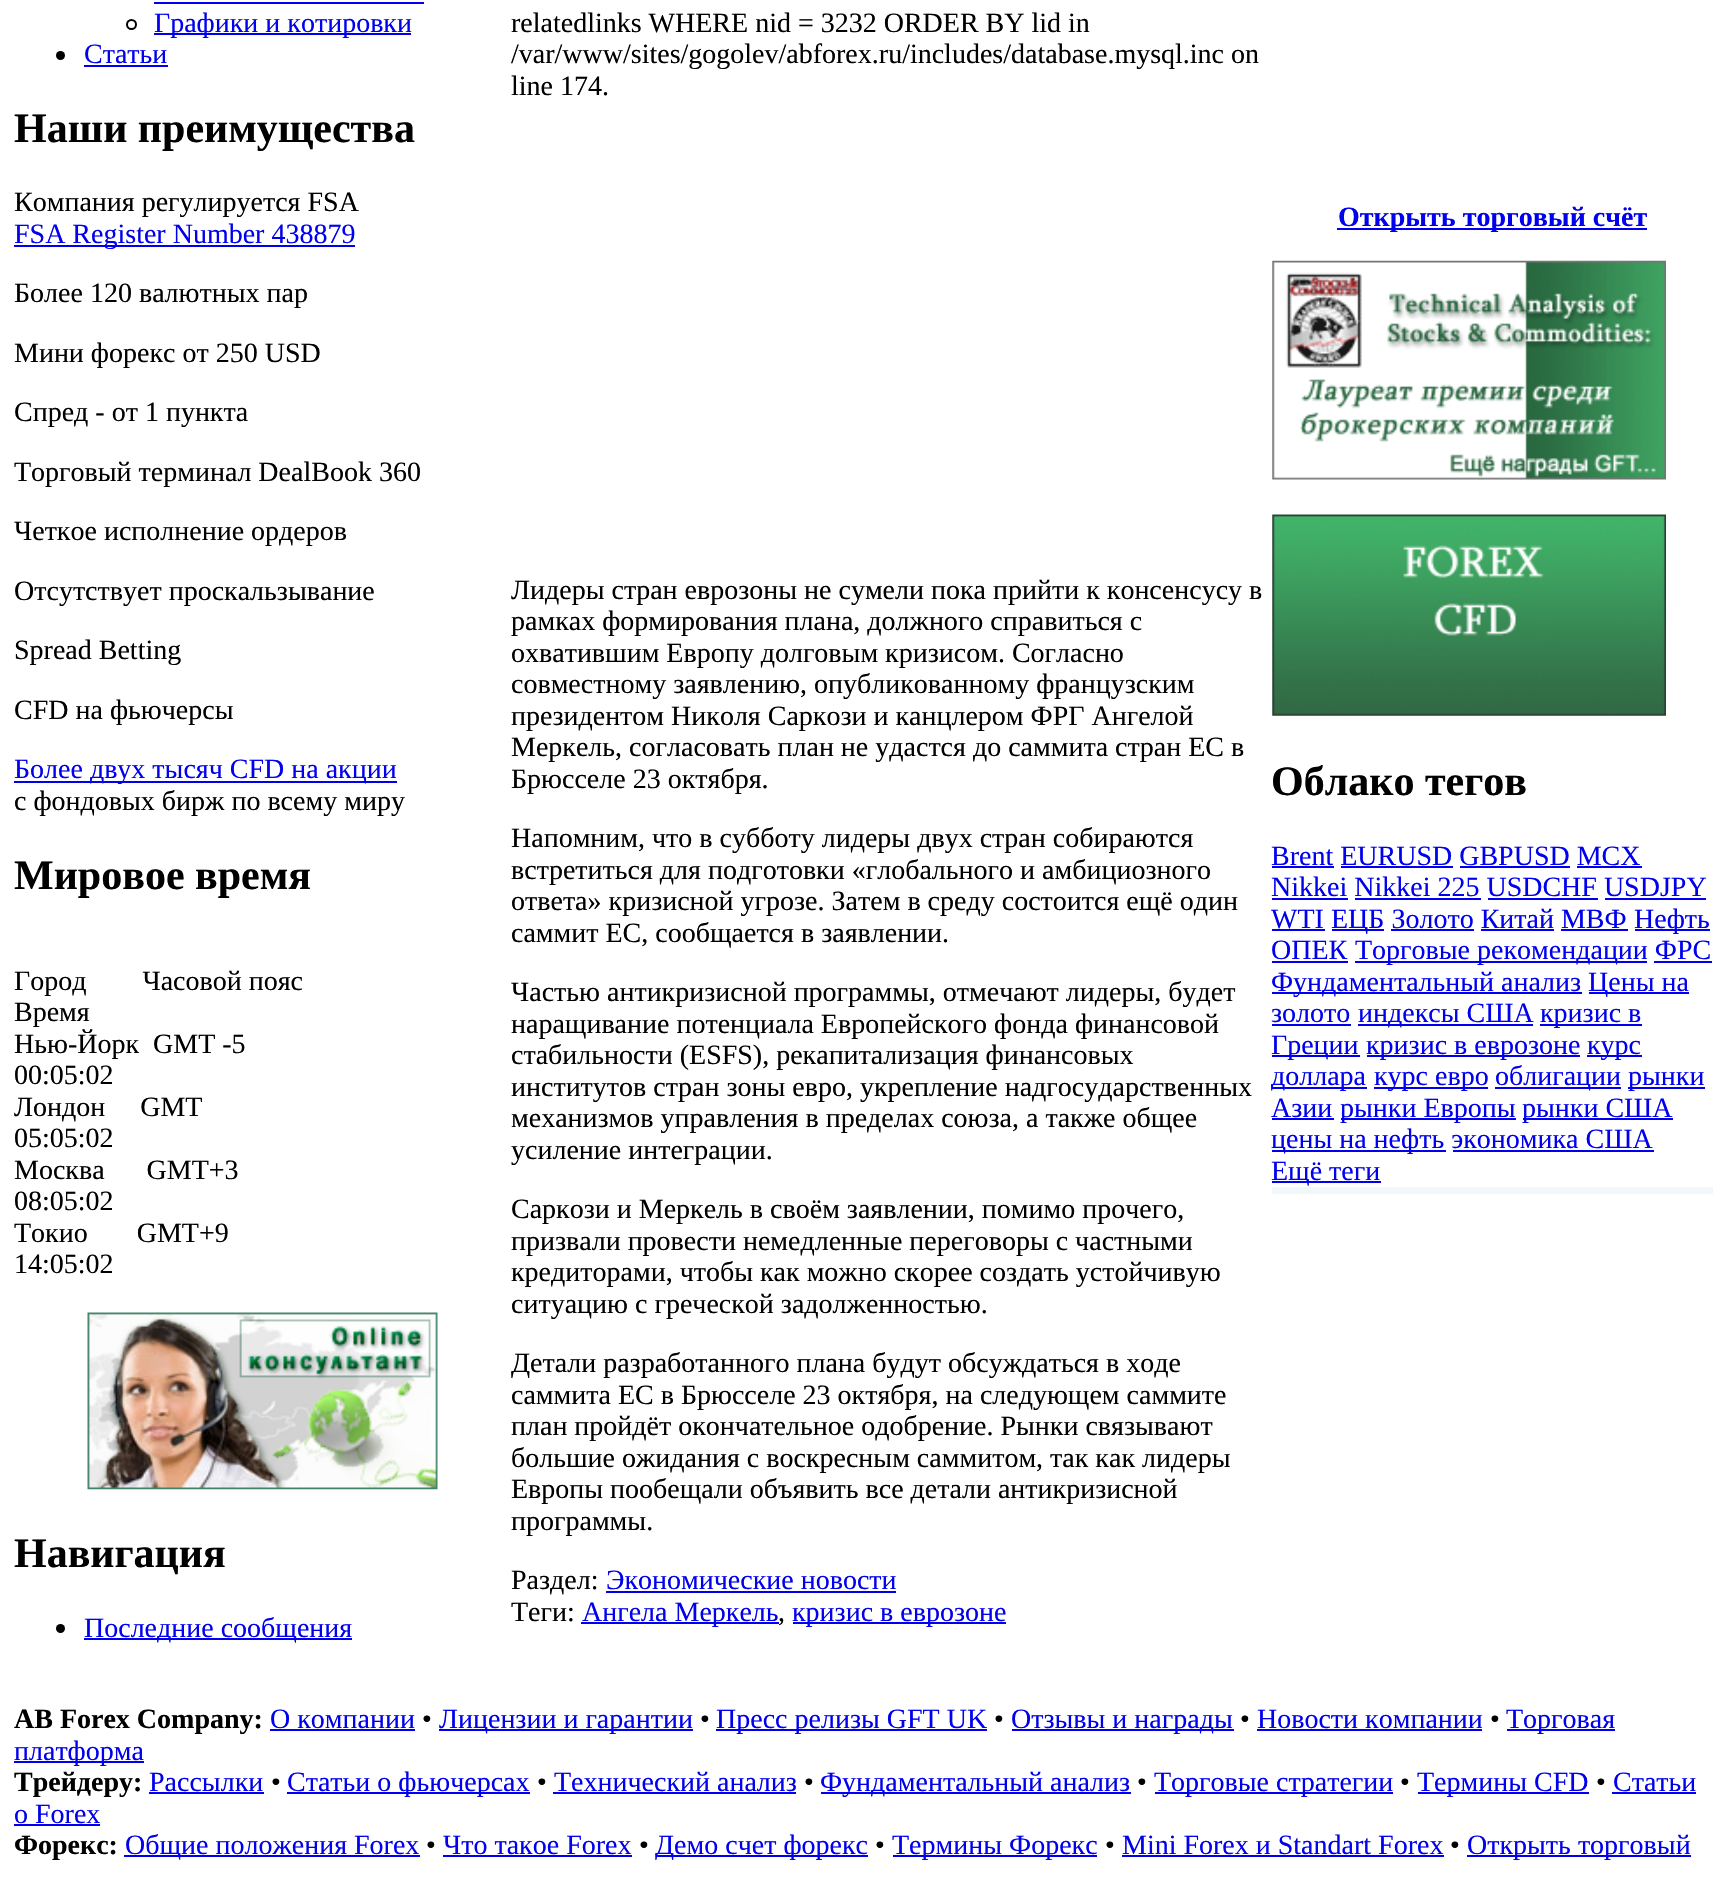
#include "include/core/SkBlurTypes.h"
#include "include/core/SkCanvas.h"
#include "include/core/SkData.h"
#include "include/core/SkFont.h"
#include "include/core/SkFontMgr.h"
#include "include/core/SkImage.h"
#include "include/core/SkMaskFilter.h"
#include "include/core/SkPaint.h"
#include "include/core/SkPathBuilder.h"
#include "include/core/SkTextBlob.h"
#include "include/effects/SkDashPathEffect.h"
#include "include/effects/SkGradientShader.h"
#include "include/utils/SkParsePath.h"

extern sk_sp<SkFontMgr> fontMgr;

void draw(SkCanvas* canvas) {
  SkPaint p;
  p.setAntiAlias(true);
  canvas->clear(SK_ColorWHITE);
  p.setColor(SkColorSetRGB(0, 0, 238));
  canvas->drawRect(SkRect::MakeLTRB(154, 2, 424, 4), p);
  p.setStyle(SkPaint::kStroke_Style);
  p.setStrokeWidth(2);
  p.setColor(SK_ColorBLACK);
  canvas->drawCircle(131.5f, 24.5f, 4.5f, p);
  p.setStyle(SkPaint::kFill_Style);
  p.setColor(SkColorSetRGB(0, 0, 238));
  canvas->drawRect(SkRect::MakeLTRB(154, 33, 411, 35), p);
  p.setColor(SK_ColorBLACK);
  canvas->drawCircle(60.5f, 55.5f, 4.5f, p);
  p.setColor(SkColorSetRGB(0, 0, 238));
  canvas->drawRect(SkRect::MakeLTRB(84, 65, 168, 67), p);
  canvas->drawRect(SkRect::MakeLTRB(14, 245, 355, 247), p);
  canvas->drawRect(SkRect::MakeLTRB(14, 781, 397, 783), p);
  canvas->drawImageRect(SkImages::DeferredFromEncodedData(SkData::MakeFromFileName("images/1.png")), SkRect::MakeLTRB(87, 1312, 438, 1490), SkSamplingOptions());
  p.setColor(SK_ColorBLACK);
  canvas->drawCircle(60.5f, 1628.5f, 4.5f, p);
  p.setColor(SkColorSetRGB(0, 0, 238));
  canvas->drawRect(SkRect::MakeLTRB(84, 1638, 352, 1640), p);
  canvas->drawRect(SkRect::MakeLTRB(606, 1591, 896, 1593), p);
  canvas->drawRect(SkRect::MakeLTRB(581, 1622, 779, 1624), p);
  canvas->drawRect(SkRect::MakeLTRB(793, 1622, 1006, 1624), p);
  canvas->drawRect(SkRect::MakeLTRB(1337, 228, 1647, 230), p);
  canvas->drawImageRect(SkImages::DeferredFromEncodedData(SkData::MakeFromFileName("images/2.png")), SkRect::MakeLTRB(1272, 260, 1666, 480), SkSamplingOptions());
  canvas->drawImageRect(SkImages::DeferredFromEncodedData(SkData::MakeFromFileName("images/3.png")), SkRect::MakeLTRB(1272, 514, 1666, 716), SkSamplingOptions());
  canvas->drawRect(SkRect::MakeLTRB(1272, 866, 1334, 868), p);
  canvas->drawRect(SkRect::MakeLTRB(1341, 866, 1453, 868), p);
  canvas->drawRect(SkRect::MakeLTRB(1460, 866, 1570, 868), p);
  canvas->drawRect(SkRect::MakeLTRB(1577, 866, 1642, 868), p);
  canvas->drawRect(SkRect::MakeLTRB(1272, 898, 1348, 900), p);
  canvas->drawRect(SkRect::MakeLTRB(1355, 898, 1481, 900), p);
  canvas->drawRect(SkRect::MakeLTRB(1488, 898, 1598, 900), p);
  canvas->drawRect(SkRect::MakeLTRB(1605, 898, 1706, 900), p);
  canvas->drawRect(SkRect::MakeLTRB(1272, 929, 1325, 931), p);
  canvas->drawRect(SkRect::MakeLTRB(1332, 929, 1384, 931), p);
  canvas->drawRect(SkRect::MakeLTRB(1635, 929, 1710, 931), p);
  canvas->drawRect(SkRect::MakeLTRB(1391, 929, 1474, 931), p);
  canvas->drawRect(SkRect::MakeLTRB(1481, 929, 1554, 931), p);
  canvas->drawRect(SkRect::MakeLTRB(1561, 929, 1628, 931), p);
  canvas->drawRect(SkRect::MakeLTRB(1272, 961, 1348, 963), p);
  canvas->drawRect(SkRect::MakeLTRB(1355, 961, 1647, 963), p);
  canvas->drawRect(SkRect::MakeLTRB(1654, 961, 1712, 963), p);
  canvas->drawRect(SkRect::MakeLTRB(1272, 992, 1582, 994), p);
  canvas->drawRect(SkRect::MakeLTRB(1589, 992, 1689, 994), p);
  canvas->drawRect(SkRect::MakeLTRB(1272, 1024, 1351, 1026), p);
  canvas->drawRect(SkRect::MakeLTRB(1358, 1024, 1533, 1026), p);
  canvas->drawRect(SkRect::MakeLTRB(1540, 1024, 1642, 1026), p);
  canvas->drawRect(SkRect::MakeLTRB(1272, 1055, 1360, 1057), p);
  canvas->drawRect(SkRect::MakeLTRB(1367, 1055, 1580, 1057), p);
  canvas->drawRect(SkRect::MakeLTRB(1587, 1055, 1642, 1057), p);
  canvas->drawRect(SkRect::MakeLTRB(1272, 1087, 1367, 1089), p);
  canvas->drawRect(SkRect::MakeLTRB(1374, 1087, 1488, 1089), p);
  canvas->drawRect(SkRect::MakeLTRB(1495, 1087, 1621, 1089), p);
  canvas->drawRect(SkRect::MakeLTRB(1628, 1087, 1705, 1089), p);
  canvas->drawRect(SkRect::MakeLTRB(1272, 1118, 1334, 1120), p);
  canvas->drawRect(SkRect::MakeLTRB(1341, 1118, 1516, 1120), p);
  canvas->drawRect(SkRect::MakeLTRB(1523, 1118, 1673, 1120), p);
  canvas->drawRect(SkRect::MakeLTRB(1272, 1150, 1446, 1152), p);
  canvas->drawRect(SkRect::MakeLTRB(1453, 1150, 1654, 1152), p);
  canvas->drawRect(SkRect::MakeLTRB(1272, 1181, 1381, 1183), p);
  p.setColor(SkColorSetRGB(241, 247, 250));
  canvas->drawRect(SkRect::MakeLTRB(1272, 1187, 1713, 1194), p);
  p.setColor(SkColorSetRGB(0, 0, 238));
  canvas->drawRect(SkRect::MakeLTRB(270, 1729, 415, 1731), p);
  canvas->drawRect(SkRect::MakeLTRB(439, 1729, 693, 1731), p);
  canvas->drawRect(SkRect::MakeLTRB(716, 1729, 987, 1731), p);
  canvas->drawRect(SkRect::MakeLTRB(1012, 1729, 1234, 1731), p);
  canvas->drawRect(SkRect::MakeLTRB(1257, 1729, 1482, 1731), p);
  canvas->drawRect(SkRect::MakeLTRB(1507, 1729, 1615, 1731), p);
  canvas->drawRect(SkRect::MakeLTRB(14, 1761, 144, 1763), p);
  canvas->drawRect(SkRect::MakeLTRB(149, 1792, 264, 1794), p);
  canvas->drawRect(SkRect::MakeLTRB(287, 1792, 530, 1794), p);
  canvas->drawRect(SkRect::MakeLTRB(553, 1792, 796, 1794), p);
  canvas->drawRect(SkRect::MakeLTRB(821, 1792, 1131, 1794), p);
  canvas->drawRect(SkRect::MakeLTRB(1155, 1792, 1393, 1794), p);
  canvas->drawRect(SkRect::MakeLTRB(1418, 1792, 1589, 1794), p);
  canvas->drawRect(SkRect::MakeLTRB(1612, 1792, 1696, 1794), p);
  canvas->drawRect(SkRect::MakeLTRB(14, 1824, 100, 1826), p);
  canvas->drawRect(SkRect::MakeLTRB(124, 1855, 420, 1857), p);
  canvas->drawRect(SkRect::MakeLTRB(443, 1855, 632, 1857), p);
  canvas->drawRect(SkRect::MakeLTRB(656, 1855, 868, 1857), p);
  canvas->drawRect(SkRect::MakeLTRB(893, 1855, 1097, 1857), p);
  canvas->drawRect(SkRect::MakeLTRB(1122, 1855, 1444, 1857), p);
  canvas->drawRect(SkRect::MakeLTRB(1467, 1855, 1691, 1857), p);
  SkFont font1(fontMgr->matchFamilyStyle("Liberation Serif", SkFontStyle::Normal()), 28);
  font1.setSubpixel(true);
  canvas->drawString("Графики и котировки", 154, 32, font1, p);
  canvas->drawString("Статьи", 84, 63, font1, p);
  SkFont font2(fontMgr->matchFamilyStyle("Liberation Serif", SkFontStyle::Bold()), 42);
  font2.setSubpixel(true);
  p.setColor(SK_ColorBLACK);
  canvas->drawString("Наши преимущества", 14, 142, font2, p);
  canvas->drawString("Компания регулируется FSA", 14, 211, font1, p);
  p.setColor(SkColorSetRGB(0, 0, 238));
  canvas->drawString("FSA Register Number 438879", 14, 243, font1, p);
  p.setColor(SK_ColorBLACK);
  canvas->drawString("Более 120 валютных пар", 14, 302, font1, p);
  canvas->drawString("Мини форекс от 250 USD", 14, 362, font1, p);
  canvas->drawString("Спред - от 1 пункта", 14, 421, font1, p);
  canvas->drawString("Торговый терминал DealBook 360", 14, 481, font1, p);
  canvas->drawString("Четкое исполнение ордеров", 14, 540, font1, p);
  canvas->drawString("Отсутствует проскальзывание", 14, 600, font1, p);
  canvas->drawString("Spreаd Betting", 14, 659, font1, p);
  canvas->drawString("CFD на фьючерсы", 14, 719, font1, p);
  p.setColor(SkColorSetRGB(0, 0, 238));
  canvas->drawString("Более двух тысяч CFD на акции", 14, 778, font1, p);
  p.setColor(SK_ColorBLACK);
  canvas->drawString("с фондовых бирж по всему миру", 14, 810, font1, p);
  canvas->drawString("Мировое время", 14, 889, font2, p);
  canvas->drawString("Город        Часовой пояс", 14, 990, font1, p);
  canvas->drawString("Время", 14, 1021, font1, p);
  canvas->drawString("Нью-Йорк  GMT -5", 14, 1053, font1, p);
  canvas->drawString("00:05:02", 14, 1084, font1, p);
  canvas->drawString("Лондон     GMT", 14, 1116, font1, p);
  canvas->drawString("05:05:02", 14, 1147, font1, p);
  canvas->drawString("Москва      GMT+3", 14, 1179, font1, p);
  canvas->drawString("08:05:02", 14, 1210, font1, p);
  canvas->drawString("Токио       GMT+9", 14, 1242, font1, p);
  canvas->drawString("14:05:02", 14, 1273, font1, p);
  canvas->drawString("Навигация", 14, 1567, font2, p);
  p.setColor(SkColorSetRGB(0, 0, 238));
  canvas->drawString("Последние сообщения", 84, 1637, font1, p);
  p.setColor(SK_ColorBLACK);
  canvas->drawString("relatedlinks WHERE nid = 3232 ORDER BY lid in", 511, 32, font1, p);
  canvas->drawString("/var/www/sites/gogolev/abforex.ru/includes/database.mysql.inc on", 511, 63, font1, p);
  canvas->drawString("line 174.", 511, 95, font1, p);
  canvas->drawString("Лидеры стран еврозоны не сумели пока прийти к консенсусу в", 511, 599, font1, p);
  canvas->drawString("рамках формирования плана, должного справиться с", 511, 630, font1, p);
  canvas->drawString("охватившим Европу долговым кризисом. Согласно", 511, 662, font1, p);
  canvas->drawString("совместному заявлению, опубликованному французским", 511, 693, font1, p);
  canvas->drawString("президентом Николя Саркози и канцлером ФРГ Ангелой", 511, 725, font1, p);
  canvas->drawString("Меркель, согласовать план не удастся до саммита стран ЕС в", 511, 756, font1, p);
  canvas->drawString("Брюсселе 23 октября.", 511, 788, font1, p);
  canvas->drawString("Напомним, что в субботу лидеры двух стран собираются", 511, 847, font1, p);
  canvas->drawString("встретиться для подготовки «глобального и амбициозного", 511, 879, font1, p);
  canvas->drawString("ответа» кризисной угрозе. Затем в среду состоится ещё один", 511, 910, font1, p);
  canvas->drawString("саммит ЕС, сообщается в заявлении.", 511, 942, font1, p);
  canvas->drawString("Частью антикризисной программы, отмечают лидеры, будет", 511, 1001, font1, p);
  canvas->drawString("наращивание потенциала Европейского фонда финансовой", 511, 1033, font1, p);
  canvas->drawString("стабильности (ESFS), рекапитализация финансовых", 511, 1064, font1, p);
  canvas->drawString("институтов стран зоны евро, укрепление надгосударственных", 511, 1096, font1, p);
  canvas->drawString("механизмов управления в пределах союза, а также общее", 511, 1127, font1, p);
  canvas->drawString("усиление интеграции.", 511, 1159, font1, p);
  canvas->drawString("Саркози и Меркель в своём заявлении, помимо прочего,", 511, 1218, font1, p);
  canvas->drawString("призвали провести немедленные переговоры с частными", 511, 1250, font1, p);
  canvas->drawString("кредиторами, чтобы как можно скорее создать устойчивую", 511, 1281, font1, p);
  canvas->drawString("ситуацию с греческой задолженностью.", 511, 1313, font1, p);
  canvas->drawString("Детали разработанного плана будут обсуждаться в ходе", 511, 1372, font1, p);
  canvas->drawString("саммита ЕС в Брюсселе 23 октября, на следующем саммите", 511, 1404, font1, p);
  canvas->drawString("план пройдёт окончательное одобрение. Рынки связывают", 511, 1435, font1, p);
  canvas->drawString("большие ожидания с воскресным саммитом, так как лидеры", 511, 1467, font1, p);
  canvas->drawString("Европы пообещали объявить все детали антикризисной", 511, 1498, font1, p);
  canvas->drawString("программы.", 511, 1530, font1, p);
  canvas->drawString("Раздел:", 511, 1589, font1, p);
  p.setColor(SkColorSetRGB(0, 0, 238));
  canvas->drawString("Экономические новости", 606, 1589, font1, p);
  p.setColor(SK_ColorBLACK);
  canvas->drawString("Теги:", 511, 1621, font1, p);
  p.setColor(SkColorSetRGB(0, 0, 238));
  canvas->drawString("Ангела Меркель", 582, 1621, font1, p);
  p.setColor(SK_ColorBLACK);
  canvas->drawString(",", 778, 1621, font1, p);
  p.setColor(SkColorSetRGB(0, 0, 238));
  canvas->drawString("кризис в еврозоне", 792, 1621, font1, p);
  SkFont font3(fontMgr->matchFamilyStyle("Liberation Serif", SkFontStyle::Bold()), 28);
  font3.setSubpixel(true);
  canvas->drawString("Открыть торговый счёт", 1338, 226, font3, p);
  p.setColor(SK_ColorBLACK);
  canvas->drawString("Облако тегов", 1271, 795, font2, p);
  p.setColor(SkColorSetRGB(0, 0, 238));
  canvas->drawString("Brent EURUSD GBPUSD MCX", 1271, 865, font1, p);
  canvas->drawString("Nikkei Nikkei 225 USDCHF USDJPY", 1271, 896, font1, p);
  canvas->drawString("WTI", 1271, 928, font1, p);
  canvas->drawString("ЕЦБ Золото Китай МВФ", 1331, 928, font1, p);
  canvas->drawString("Нефть", 1634, 928, font1, p);
  canvas->drawString("ОПЕК", 1271, 959, font1, p);
  canvas->drawString("Торговые рекомендации ФРС", 1355, 959, font1, p);
  canvas->drawString("Фундаментальный анализ", 1271, 991, font1, p);
  canvas->drawString("Цены на", 1588, 991, font1, p);
  canvas->drawString("золото", 1271, 1022, font1, p);
  canvas->drawString("индексы США", 1358, 1022, font1, p);
  canvas->drawString("кризис в", 1540, 1022, font1, p);
  canvas->drawString("Греции", 1271, 1054, font1, p);
  canvas->drawString("кризис в еврозоне", 1366, 1054, font1, p);
  canvas->drawString("курс", 1587, 1054, font1, p);
  canvas->drawString("доллара", 1271, 1085, font1, p);
  canvas->drawString("курс евро", 1374, 1085, font1, p);
  canvas->drawString("облигации", 1495, 1085, font1, p);
  canvas->drawString("рынки", 1628, 1085, font1, p);
  canvas->drawString("Азии", 1271, 1117, font1, p);
  canvas->drawString("рынки Европы", 1340, 1117, font1, p);
  canvas->drawString("рынки США", 1522, 1117, font1, p);
  canvas->drawString("цены на нефть экономика США", 1271, 1148, font1, p);
  canvas->drawString("Ещё теги", 1271, 1180, font1, p);
  p.setColor(SK_ColorBLACK);
  canvas->drawString("AB Forex Company:", 14, 1728, font3, p);
  p.setColor(SkColorSetRGB(0, 0, 238));
  canvas->drawString("О компании", 270, 1728, font1, p);
  p.setColor(SK_ColorBLACK);
  canvas->drawString("•", 422, 1728, font1, p);
  p.setColor(SkColorSetRGB(0, 0, 238));
  canvas->drawString("Лицензии и гарантии", 439, 1728, font1, p);
  p.setColor(SK_ColorBLACK);
  canvas->drawString("•", 700, 1728, font1, p);
  p.setColor(SkColorSetRGB(0, 0, 238));
  canvas->drawString("Пресс релизы GFT UK", 716, 1728, font1, p);
  p.setColor(SK_ColorBLACK);
  canvas->drawString("•", 994, 1728, font1, p);
  p.setColor(SkColorSetRGB(0, 0, 238));
  canvas->drawString("Отзывы и награды", 1011, 1728, font1, p);
  p.setColor(SK_ColorBLACK);
  canvas->drawString("•", 1240, 1728, font1, p);
  p.setColor(SkColorSetRGB(0, 0, 238));
  canvas->drawString("Новости компании", 1257, 1728, font1, p);
  p.setColor(SK_ColorBLACK);
  canvas->drawString("•", 1490, 1728, font1, p);
  p.setColor(SkColorSetRGB(0, 0, 238));
  canvas->drawString("Торговая", 1506, 1728, font1, p);
  canvas->drawString("платформа", 14, 1760, font1, p);
  p.setColor(SK_ColorBLACK);
  canvas->drawString("Трейдеру:", 14, 1791, font3, p);
  p.setColor(SkColorSetRGB(0, 0, 238));
  canvas->drawString("Рассылки", 149, 1791, font1, p);
  p.setColor(SK_ColorBLACK);
  canvas->drawString("•", 271, 1791, font1, p);
  p.setColor(SkColorSetRGB(0, 0, 238));
  canvas->drawString("Статьи о фьючерсах", 287, 1791, font1, p);
  p.setColor(SK_ColorBLACK);
  canvas->drawString("•", 537, 1791, font1, p);
  p.setColor(SkColorSetRGB(0, 0, 238));
  canvas->drawString("Технический анализ", 554, 1791, font1, p);
  p.setColor(SK_ColorBLACK);
  canvas->drawString("•", 804, 1791, font1, p);
  p.setColor(SkColorSetRGB(0, 0, 238));
  canvas->drawString("Фундаментальный анализ", 820, 1791, font1, p);
  p.setColor(SK_ColorBLACK);
  canvas->drawString("•", 1137, 1791, font1, p);
  p.setColor(SkColorSetRGB(0, 0, 238));
  canvas->drawString("Торговые стратегии", 1154, 1791, font1, p);
  p.setColor(SK_ColorBLACK);
  canvas->drawString("•", 1400, 1791, font1, p);
  p.setColor(SkColorSetRGB(0, 0, 238));
  canvas->drawString("Термины CFD", 1417, 1791, font1, p);
  p.setColor(SK_ColorBLACK);
  canvas->drawString("•", 1596, 1791, font1, p);
  p.setColor(SkColorSetRGB(0, 0, 238));
  canvas->drawString("Статьи", 1613, 1791, font1, p);
  canvas->drawString("о Forex", 14, 1823, font1, p);
  p.setColor(SK_ColorBLACK);
  canvas->drawString("Форекс:", 14, 1854, font3, p);
  p.setColor(SkColorSetRGB(0, 0, 238));
  canvas->drawString("Общие положения Forex", 125, 1854, font1, p);
  p.setColor(SK_ColorBLACK);
  canvas->drawString("•", 426, 1854, font1, p);
  p.setColor(SkColorSetRGB(0, 0, 238));
  canvas->drawString("Что такое Forex", 443, 1854, font1, p);
  p.setColor(SK_ColorBLACK);
  canvas->drawString("•", 639, 1854, font1, p);
  p.setColor(SkColorSetRGB(0, 0, 238));
  canvas->drawString("Демо счет форекс", 655, 1854, font1, p);
  p.setColor(SK_ColorBLACK);
  canvas->drawString("•", 875, 1854, font1, p);
  p.setColor(SkColorSetRGB(0, 0, 238));
  canvas->drawString("Термины Форекс", 892, 1854, font1, p);
  p.setColor(SK_ColorBLACK);
  canvas->drawString("•", 1105, 1854, font1, p);
  p.setColor(SkColorSetRGB(0, 0, 238));
  canvas->drawString("Mini Forex и Standart Forex", 1122, 1854, font1, p);
  p.setColor(SK_ColorBLACK);
  canvas->drawString("•", 1450, 1854, font1, p);
  p.setColor(SkColorSetRGB(0, 0, 238));
  canvas->drawString("Открыть торговый", 1467, 1854, font1, p);
}
